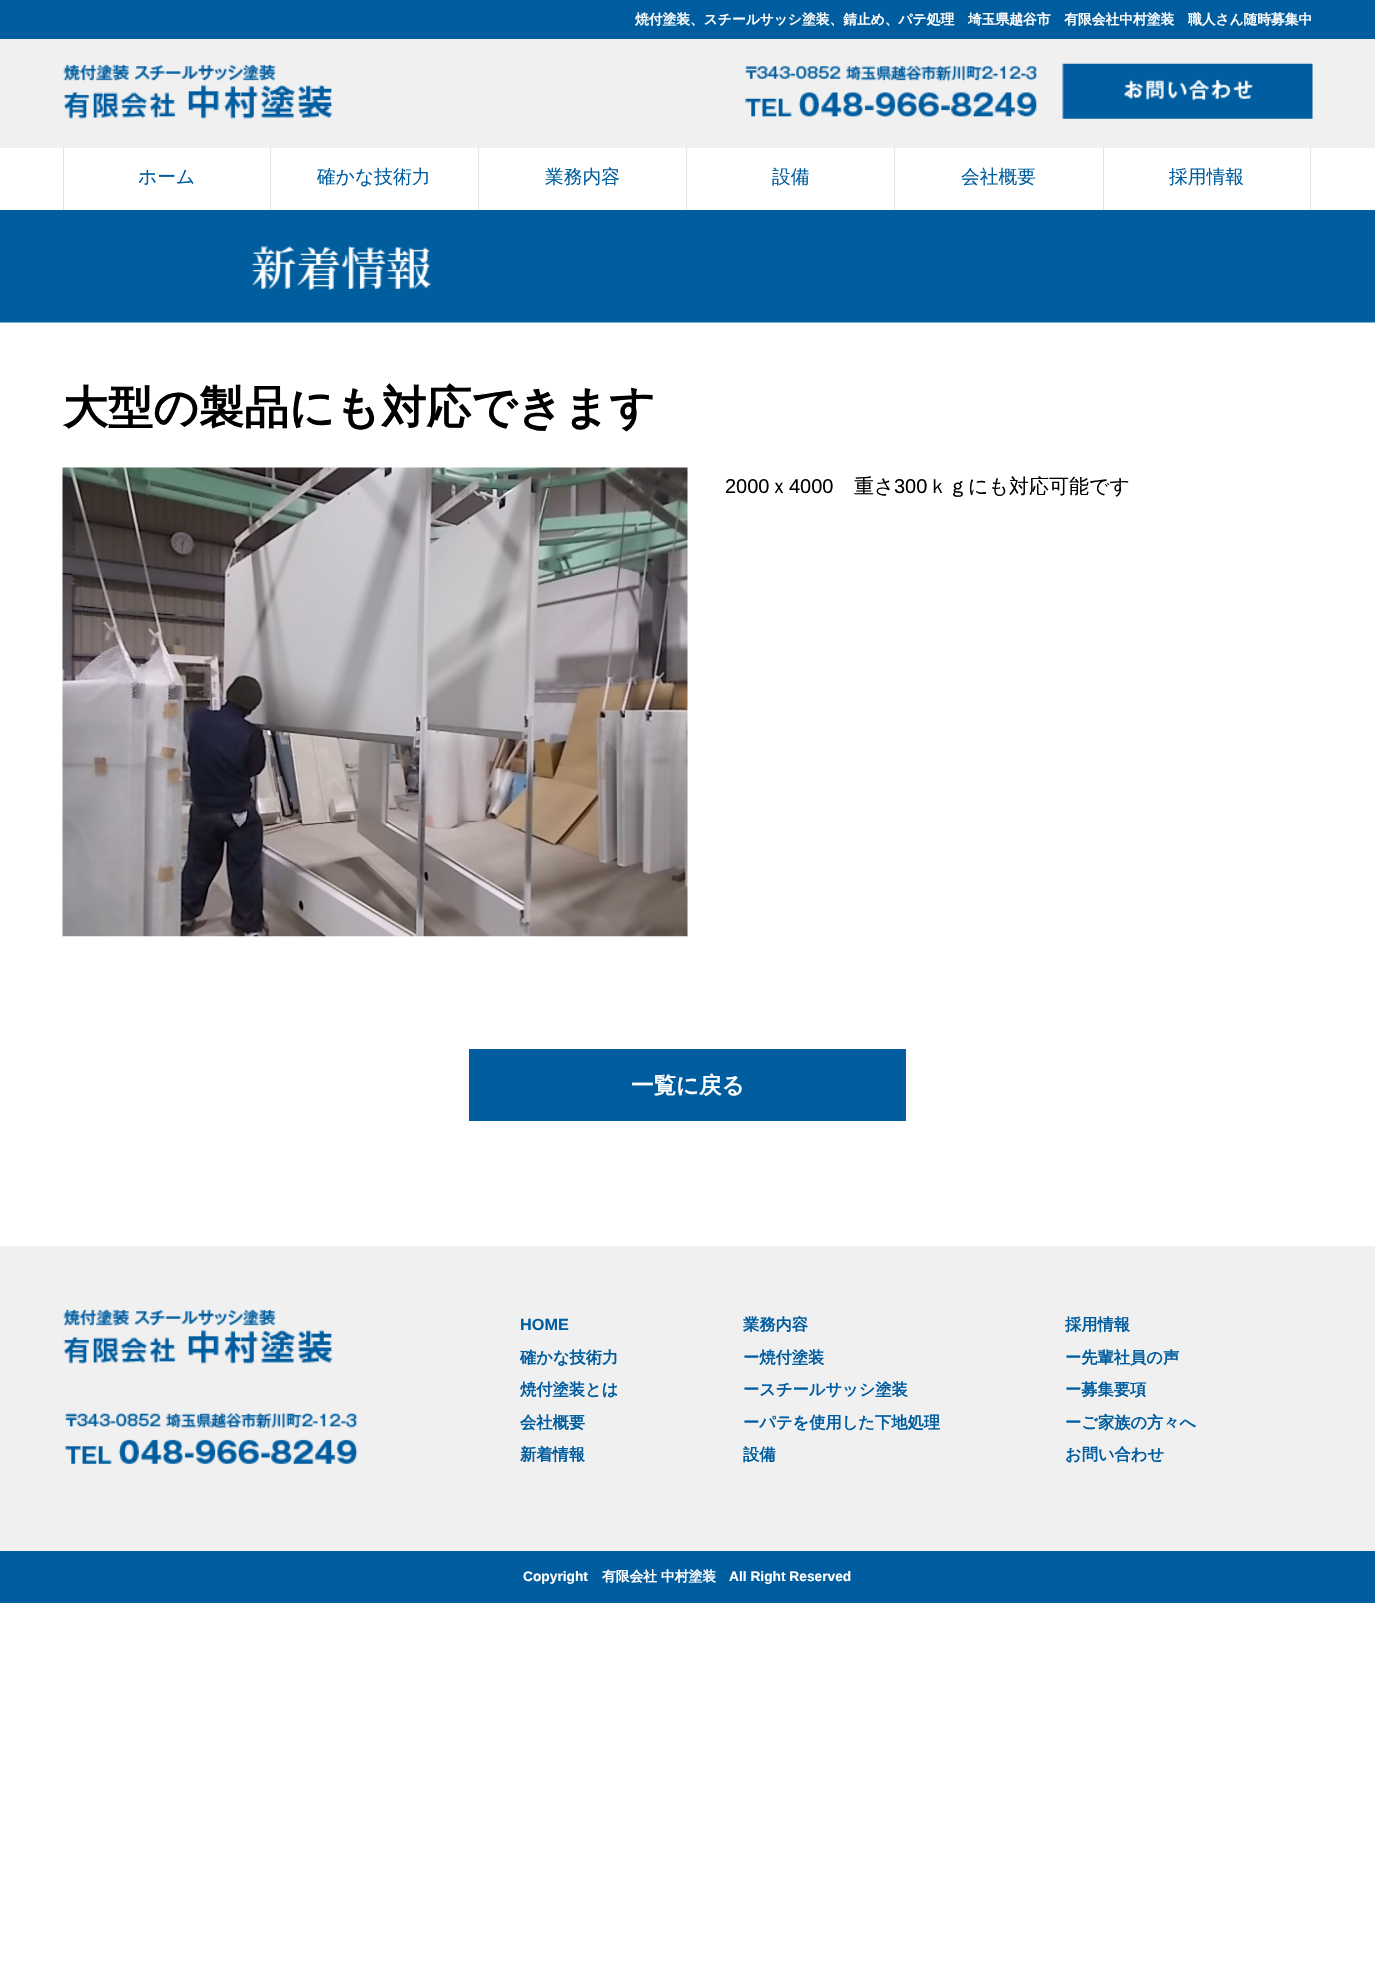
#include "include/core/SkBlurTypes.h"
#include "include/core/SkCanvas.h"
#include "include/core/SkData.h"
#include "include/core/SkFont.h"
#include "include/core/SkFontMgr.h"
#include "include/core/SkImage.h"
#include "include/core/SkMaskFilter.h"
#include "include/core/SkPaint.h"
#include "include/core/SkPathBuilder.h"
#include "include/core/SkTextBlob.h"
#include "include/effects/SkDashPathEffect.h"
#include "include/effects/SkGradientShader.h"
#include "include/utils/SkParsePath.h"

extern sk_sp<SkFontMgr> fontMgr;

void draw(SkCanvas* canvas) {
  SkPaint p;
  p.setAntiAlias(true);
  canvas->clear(SK_ColorWHITE);
  p.setColor(SkColorSetRGB(0, 93, 159));
  canvas->drawRect(SkRect::MakeLTRB(0, 0, 1375, 39), p);
  p.setColor(SkColorSetRGB(240, 240, 240));
  canvas->drawRect(SkRect::MakeLTRB(0, 39, 1375, 148), p);
  canvas->drawImageRect(SkImages::DeferredFromEncodedData(SkData::MakeFromFileName("images/1.png")), SkRect::MakeLTRB(63, 64, 333, 119), SkSamplingOptions());
  canvas->drawImageRect(SkImages::DeferredFromEncodedData(SkData::MakeFromFileName("images/2.png")), SkRect::MakeLTRB(744, 65, 1037, 117), SkSamplingOptions());
  canvas->drawImageRect(SkImages::DeferredFromEncodedData(SkData::MakeFromFileName("images/3.png")), SkRect::MakeLTRB(1062, 63, 1313, 119), SkSamplingOptions());
  p.setColor(SkColorSetRGB(227, 227, 227));
  canvas->drawRect(SkRect::MakeLTRB(270, 148, 271, 210), p);
  canvas->drawRect(SkRect::MakeLTRB(63, 148, 64, 210), p);
  canvas->drawRect(SkRect::MakeLTRB(478, 148, 479, 210), p);
  canvas->drawRect(SkRect::MakeLTRB(686, 148, 687, 210), p);
  canvas->drawRect(SkRect::MakeLTRB(894, 148, 895, 210), p);
  canvas->drawRect(SkRect::MakeLTRB(1103, 148, 1104, 210), p);
  canvas->drawRect(SkRect::MakeLTRB(1310, 148, 1311, 210), p);
  canvas->drawImageRect(SkImages::DeferredFromEncodedData(SkData::MakeFromFileName("images/4.png")), SkRect::MakeLTRB(0, 210, 1375, 323), SkSamplingOptions());
  canvas->drawImageRect(SkImages::DeferredFromEncodedData(SkData::MakeFromFileName("images/5.png")), SkRect::MakeLTRB(62, 467, 688, 937), SkSamplingOptions());
  p.setColor(SkColorSetRGB(0, 93, 159));
  canvas->drawRect(SkRect::MakeLTRB(469, 1049, 906, 1121), p);
  p.setColor(SkColorSetRGB(240, 240, 240));
  canvas->drawRect(SkRect::MakeLTRB(0, 1246, 1375, 1551), p);
  canvas->drawImageRect(SkImages::DeferredFromEncodedData(SkData::MakeFromFileName("images/1.png")), SkRect::MakeLTRB(63, 1309, 333, 1364), SkSamplingOptions());
  canvas->drawImageRect(SkImages::DeferredFromEncodedData(SkData::MakeFromFileName("images/6.png")), SkRect::MakeLTRB(64, 1412, 357, 1464), SkSamplingOptions());
  p.setColor(SkColorSetRGB(0, 93, 159));
  canvas->drawRect(SkRect::MakeLTRB(0, 1551, 1375, 1603), p);
  SkFont font1(fontMgr->matchFamilyStyle("WenQuanYi Zen Hei", SkFontStyle::Bold()), 13.75f);
  font1.setSubpixel(true);
  p.setColor(SK_ColorWHITE);
  canvas->drawString("焼付塗装、スチールサッシ塗装、錆止め、パテ処理　埼玉県越谷市　有限会社中村塗装　職人さん随時募集中", 635, 24, font1, p);
  SkFont font2(fontMgr->matchFamilyStyle("WenQuanYi Zen Hei", SkFontStyle(500, SkFontStyle::kNormal_Width, SkFontStyle::kUpright_Slant)), 18.75f);
  font2.setSubpixel(true);
  p.setColor(SkColorSetRGB(0, 93, 159));
  canvas->drawString("ホーム", 138, 183, font2, p);
  canvas->drawString("確かな技術力", 317, 183, font2, p);
  canvas->drawString("業務内容", 545, 183, font2, p);
  canvas->drawString("設備", 772, 183, font2, p);
  canvas->drawString("会社概要", 961, 183, font2, p);
  canvas->drawString("採用情報", 1169, 183, font2, p);
  SkFont font3(fontMgr->matchFamilyStyle("WenQuanYi Zen Hei", SkFontStyle::Bold()), 45);
  font3.setSubpixel(true);
  p.setColor(SK_ColorBLACK);
  canvas->drawString("大型の製品にも対応できます", 63, 423, font3, p);
  SkFont font4(fontMgr->matchFamilyStyle("Liberation Sans", SkFontStyle::Normal()), 20);
  font4.setSubpixel(true);
  canvas->drawString("2000", 725, 493, font4, p);
  SkFont font5(fontMgr->matchFamilyStyle("WenQuanYi Zen Hei", SkFontStyle(500, SkFontStyle::kNormal_Width, SkFontStyle::kUpright_Slant)), 20);
  font5.setSubpixel(true);
  canvas->drawString("ｘ", 769, 493, font5, p);
  canvas->drawString("4000", 789, 493, font4, p);
  canvas->drawString("重さ", 854, 493, font5, p);
  canvas->drawString("300", 894, 493, font4, p);
  canvas->drawString("ｋｇにも対応可能です", 928, 493, font5, p);
  SkFont font6(fontMgr->matchFamilyStyle("WenQuanYi Zen Hei", SkFontStyle::Bold()), 22.5f);
  font6.setSubpixel(true);
  p.setColor(SK_ColorWHITE);
  canvas->drawString("一覧に戻る", 631, 1093, font6, p);
  SkFont font7(fontMgr->matchFamilyStyle("Liberation Sans", SkFontStyle::Bold()), 16.25f);
  font7.setSubpixel(true);
  p.setColor(SkColorSetRGB(0, 93, 159));
  canvas->drawString("HOME", 520, 1330, font7, p);
  SkFont font8(fontMgr->matchFamilyStyle("WenQuanYi Zen Hei", SkFontStyle::Bold()), 16.25f);
  font8.setSubpixel(true);
  canvas->drawString("確かな技術力", 520, 1363, font8, p);
  canvas->drawString("焼付塗装とは", 520, 1395, font8, p);
  canvas->drawString("会社概要", 520, 1428, font8, p);
  canvas->drawString("新着情報", 520, 1460, font8, p);
  canvas->drawString("業務内容", 743, 1330, font8, p);
  canvas->drawString("ー焼付塗装", 743, 1363, font8, p);
  canvas->drawString("ースチールサッシ塗装", 743, 1395, font8, p);
  canvas->drawString("ーパテを使用した下地処理", 743, 1428, font8, p);
  canvas->drawString("設備", 743, 1460, font8, p);
  canvas->drawString("採用情報", 1065, 1330, font8, p);
  canvas->drawString("ー先輩社員の声", 1065, 1363, font8, p);
  canvas->drawString("ー募集要項", 1065, 1395, font8, p);
  canvas->drawString("ーご家族の方々へ", 1065, 1428, font8, p);
  canvas->drawString("お問い合わせ", 1065, 1460, font8, p);
  SkFont font9(fontMgr->matchFamilyStyle("Liberation Sans", SkFontStyle::Bold()), 13.75f);
  font9.setSubpixel(true);
  p.setColor(SK_ColorWHITE);
  canvas->drawString("Copyright", 523, 1581, font9, p);
  canvas->drawString("有限会社", 602, 1581, font1, p);
  canvas->drawString("中村塗装", 661, 1581, font1, p);
  canvas->drawString("All Right Reserved", 729, 1581, font9, p);
}
